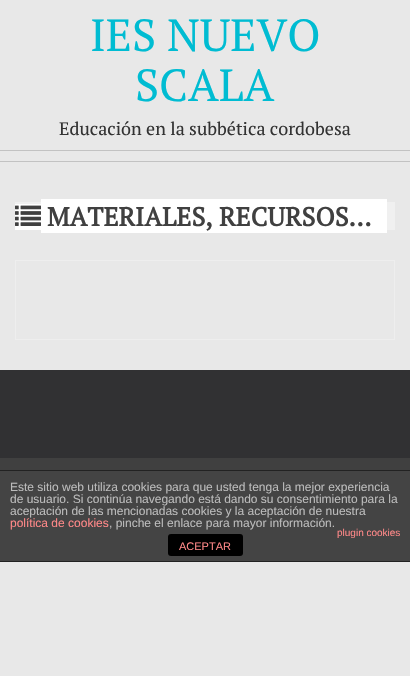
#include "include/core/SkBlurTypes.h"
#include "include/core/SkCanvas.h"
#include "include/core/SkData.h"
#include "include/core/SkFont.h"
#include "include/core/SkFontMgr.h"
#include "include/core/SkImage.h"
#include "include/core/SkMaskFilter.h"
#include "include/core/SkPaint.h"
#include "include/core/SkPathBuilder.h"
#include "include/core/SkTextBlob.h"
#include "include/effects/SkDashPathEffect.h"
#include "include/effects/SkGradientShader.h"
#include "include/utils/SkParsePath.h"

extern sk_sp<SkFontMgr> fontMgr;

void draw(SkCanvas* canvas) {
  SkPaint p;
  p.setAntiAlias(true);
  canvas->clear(SkColorSetRGB(232, 232, 232));
  p.setColor(SkColorSetRGB(194, 194, 194));
  canvas->drawRect(SkRect::MakeLTRB(0, 150, 410, 151), p);
  canvas->drawRect(SkRect::MakeLTRB(0, 161, 410, 162), p);
  p.setColor(SkColorSetRGB(240, 240, 240));
  canvas->drawRect(SkRect::MakeLTRB(15, 202, 395, 230), p);
  p.setColor(SK_ColorWHITE);
  canvas->drawRect(SkRect::MakeLTRB(15, 204, 41, 230), p);
  canvas->drawRect(SkRect::MakeLTRB(41, 199, 387, 233), p);
  canvas->drawImageRect(SkImages::DeferredFromEncodedData(SkData::MakeFromFileName("images/1.png")), SkRect::MakeLTRB(15, 205, 41, 226), SkSamplingOptions());
  p.setStyle(SkPaint::kStroke_Style);
  p.setStrokeWidth(1);
  p.setColor(SkColorSetRGB(238, 238, 238));
  canvas->drawRect(SkRect::MakeLTRB(15.5f, 260.5f, 394.5f, 339.5f), p);
  p.setStyle(SkPaint::kFill_Style);
  p.setColor(SkColorSetRGB(49, 49, 51));
  canvas->drawRect(SkRect::MakeLTRB(0, 370, 410, 458), p);
  p.setColor(SkColorSetRGB(64, 64, 64));
  canvas->drawRect(SkRect::MakeLTRB(0, 458, 410, 470), p);
  p.setColor(SkColorSetRGB(68, 68, 68));
  canvas->drawRect(SkRect::MakeLTRB(0, 471, 410, 561), p);
  p.setColor(SkColorSetRGB(34, 34, 34));
  canvas->drawRect(SkRect::MakeLTRB(0, 470, 410, 471), p);
  canvas->drawRect(SkRect::MakeLTRB(0, 561, 410, 562), p);
  p.setColor(SK_ColorBLACK);
  canvas->drawRoundRect(SkRect::MakeLTRB(168, 534, 243, 556), 3, 3, p);
  SkFont font1(fontMgr->matchFamilyStyle("PT Serif", SkFontStyle::Normal()), 45);
  font1.setSubpixel(true);
  p.setColor(SkColorSetRGB(0, 188, 210));
  canvas->drawString("IES NUEVO", 90, 51, font1, p);
  canvas->drawString("SCALA", 135, 101, font1, p);
  SkFont font2(fontMgr->matchFamilyStyle("PT Serif", SkFontStyle::Normal()), 18);
  font2.setSubpixel(true);
  p.setColor(SkColorSetRGB(51, 51, 51));
  canvas->drawString("Educación en la subbética cordobesa", 59, 135, font2, p);
  SkFont font3(fontMgr->matchFamilyStyle("PT Serif", SkFontStyle::Bold()), 26);
  font3.setSubpixel(true);
  p.setColor(SkColorSetRGB(64, 64, 64));
  canvas->drawString("MATERIALES, RECURSOS…", 47, 226, font3, p);
  SkFont font4(fontMgr->matchFamilyStyle("Liberation Sans", SkFontStyle::Normal()), 12);
  font4.setSubpixel(true);
  p.setColor(SkColorSetRGB(187, 187, 187));
  canvas->drawString("Este sitio web utiliza cookies para que usted tenga la mejor experiencia", 10, 491, font4, p);
  canvas->drawString("de usuario. Si continúa navegando está dando su consentimiento para la", 10, 503, font4, p);
  canvas->drawString("aceptación de las mencionadas cookies y la aceptación de nuestra", 10, 515, font4, p);
  p.setColor(SkColorSetRGB(255, 136, 136));
  canvas->drawString("política de cookies", 10, 527, font4, p);
  p.setColor(SkColorSetRGB(187, 187, 187));
  canvas->drawString(", pinche el enlace para mayor información.", 109, 527, font4, p);
  SkFont font5(fontMgr->matchFamilyStyle("Liberation Sans", SkFontStyle::Normal()), 10);
  font5.setSubpixel(true);
  p.setColor(SkColorSetRGB(255, 136, 136));
  canvas->drawString("plugin cookies", 337, 536, font5, p);
  SkFont font6(fontMgr->matchFamilyStyle("Liberation Sans", SkFontStyle::Normal()), 11);
  font6.setSubpixel(true);
  canvas->drawString("ACEPTAR", 179, 550, font6, p);
}
